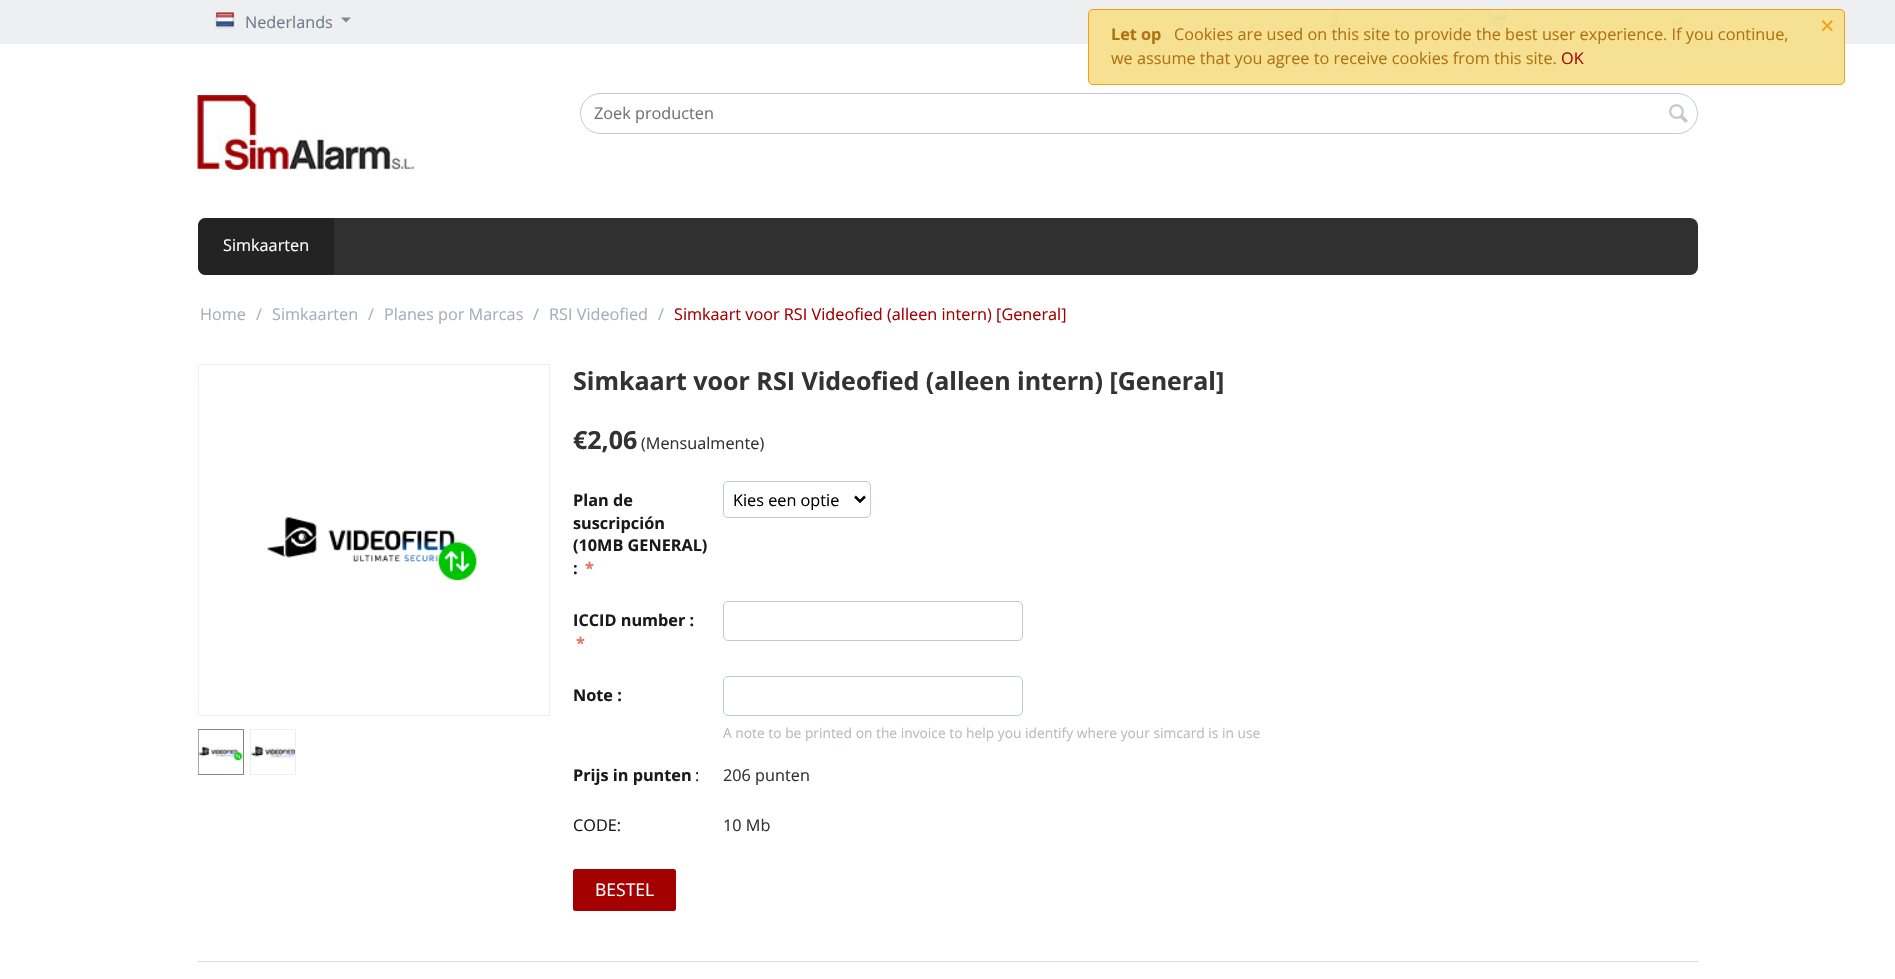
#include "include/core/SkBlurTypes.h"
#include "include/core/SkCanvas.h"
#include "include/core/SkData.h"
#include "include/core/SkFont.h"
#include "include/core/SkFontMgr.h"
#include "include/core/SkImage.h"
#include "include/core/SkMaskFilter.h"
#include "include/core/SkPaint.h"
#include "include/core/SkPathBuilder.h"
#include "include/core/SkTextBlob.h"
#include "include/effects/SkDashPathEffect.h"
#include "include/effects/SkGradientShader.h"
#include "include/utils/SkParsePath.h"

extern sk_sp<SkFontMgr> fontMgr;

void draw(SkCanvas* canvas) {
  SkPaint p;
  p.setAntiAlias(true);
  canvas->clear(SK_ColorWHITE);
  p.setColor(SkColorSetRGB(237, 239, 241));
  canvas->drawRect(SkRect::MakeLTRB(0, 0, 1895, 44), p);
  canvas->drawImageRect(SkImages::DeferredFromEncodedData(SkData::MakeFromFileName("images/1.png")), SkRect::MakeLTRB(215, 12, 235, 29), SkSamplingOptions());
  p.setColor(SkColorSetRGB(122, 137, 152));
  canvas->drawPath(SkPathBuilder().moveTo(346, 22.5f).lineTo(341, 17.5f).lineTo(351, 17.5f).close().detach(), p);
  canvas->drawImageRect(SkImages::DeferredFromEncodedData(SkData::MakeFromFileName("images/2.png")), SkRect::MakeLTRB(1327, 13, 1343, 28), SkSamplingOptions());
  canvas->drawPath(SkPathBuilder().moveTo(1460.5f, 24).lineTo(1455, 19).lineTo(1465.5f, 19).close().detach(), p);
  canvas->drawImageRect(SkImages::DeferredFromEncodedData(SkData::MakeFromFileName("images/3.png")), SkRect::MakeLTRB(1487, 12, 1508, 28), SkSamplingOptions());
  canvas->drawPath(SkPathBuilder().moveTo(1678, 25.5f).lineTo(1672.5f, 20).lineTo(1683, 20).close().detach(), p);
  canvas->drawImageRect(SkImages::DeferredFromEncodedData(SkData::MakeFromFileName("images/4.png")), SkRect::MakeLTRB(197, 95, 414, 170), SkSamplingOptions());
  p.setStyle(SkPaint::kStroke_Style);
  p.setStrokeWidth(1);
  p.setColor(SkColorSetRGB(194, 201, 208));
  canvas->drawRoundRect(SkRect::MakeLTRB(580.5f, 93.5f, 1697.5f, 133.5f), 20, 20, p);
  canvas->drawImageRect(SkImages::DeferredFromEncodedData(SkData::MakeFromFileName("images/5.png")), SkRect::MakeLTRB(1669, 104, 1688, 123), SkSamplingOptions());
  p.setStyle(SkPaint::kFill_Style);
  p.setColor(SkColorSetRGB(48, 48, 48));
  canvas->drawRoundRect(SkRect::MakeLTRB(198, 218, 1698, 275), 8, 8, p);
  p.setColor(SkColorSetRGB(35, 35, 35));
  canvas->drawPath(SkPathBuilder().moveTo(206, 218).lineTo(334, 218).lineTo(334, 275).lineTo(206, 275).cubicTo(201.5f, 275, 198, 271.5f, 198, 267).lineTo(198, 226).cubicTo(198, 221.5f, 201.5f, 218, 206, 218).close().detach(), p);
  p.setStyle(SkPaint::kStroke_Style);
  p.setColor(SkColorSetRGB(237, 239, 241));
  canvas->drawRect(SkRect::MakeLTRB(198.5f, 364.5f, 549.5f, 715.5f), p);
  canvas->drawImageRect(SkImages::DeferredFromEncodedData(SkData::MakeFromFileName("images/6.png")), SkRect::MakeLTRB(198, 385, 477, 695), SkSamplingOptions());
  p.setColor(SkColorSetRGB(136, 136, 136));
  canvas->drawRect(SkRect::MakeLTRB(198.5f, 729.5f, 243.5f, 774.5f), p);
  canvas->drawImageRect(SkImages::DeferredFromEncodedData(SkData::MakeFromFileName("images/7.png")), SkRect::MakeLTRB(198, 730, 243, 774), SkSamplingOptions());
  p.setColor(SkColorSetRGB(237, 239, 241));
  canvas->drawRect(SkRect::MakeLTRB(250.5f, 729.5f, 295.5f, 774.5f), p);
  canvas->drawImageRect(SkImages::DeferredFromEncodedData(SkData::MakeFromFileName("images/8.png")), SkRect::MakeLTRB(251, 746, 295, 758), SkSamplingOptions());
  p.setColor(SkColorSetRGB(194, 201, 208));
  canvas->drawRoundRect(SkRect::MakeLTRB(723.5f, 481.5f, 870.5f, 517.5f), 4.5f, 4.5f, p);
  p.setStrokeWidth(2.5f);
  p.setColor(SK_ColorBLACK);
  canvas->drawPath(SkPathBuilder().moveTo(855, 496.5f).lineTo(860, 501.5f).lineTo(865, 496.5f).detach(), p);
  p.setStrokeWidth(1);
  p.setColor(SkColorSetRGB(194, 201, 208));
  canvas->drawRoundRect(SkRect::MakeLTRB(723.5f, 601.5f, 1022.5f, 640.5f), 4.5f, 4.5f, p);
  canvas->drawRoundRect(SkRect::MakeLTRB(723.5f, 676.5f, 1022.5f, 715.5f), 4.5f, 4.5f, p);
  p.setStyle(SkPaint::kFill_Style);
  p.setColor(SkColorSetRGB(164, 0, 1));
  canvas->drawRoundRect(SkRect::MakeLTRB(573, 869, 676, 911), 2.5f, 2.5f, p);
  p.setColor(SkColorSetRGB(217, 221, 225));
  canvas->drawRect(SkRect::MakeLTRB(198, 961, 1698, 962), p);
  p.setColor(SkColorSetARGB(245, 245, 224, 140));
  canvas->drawRoundRect(SkRect::MakeLTRB(1088, 9, 1845, 85), 5, 5, p);
  p.setStyle(SkPaint::kStroke_Style);
  p.setColor(SkColorSetARGB(245, 243, 156, 18));
  canvas->drawRoundRect(SkRect::MakeLTRB(1088.5f, 9.5f, 1844.5f, 84.5f), 4.5f, 4.5f, p);
  SkFont font1(fontMgr->matchFamilyStyle("Open Sans", SkFontStyle::Normal()), 16.25f);
  font1.setSubpixel(true);
  p.setStyle(SkPaint::kFill_Style);
  p.setColor(SkColorSetRGB(109, 124, 140));
  canvas->drawString("Nederlands", 245, 28, font1, p);
  p.setColor(SkColorSetRGB(115, 115, 115));
  canvas->drawString("Zoek producten", 594, 119, font1, p);
  p.setColor(SK_ColorWHITE);
  canvas->drawString("Simkaarten", 223, 251, font1, p);
  p.setColor(SkColorSetRGB(165, 175, 185));
  canvas->drawString("Home", 200, 320, font1, p);
  canvas->drawString("/", 256, 320, font1, p);
  canvas->drawString("Simkaarten", 272, 320, font1, p);
  canvas->drawString("/", 368, 320, font1, p);
  canvas->drawString("Planes por Marcas", 384, 320, font1, p);
  canvas->drawString("/", 533, 320, font1, p);
  canvas->drawString("RSI Videofied", 549, 320, font1, p);
  canvas->drawString("/", 658, 320, font1, p);
  p.setColor(SkColorSetRGB(164, 0, 1));
  canvas->drawString("Simkaart voor RSI Videofied (alleen intern) [General]", 674, 320, font1, p);
  SkFont font2(fontMgr->matchFamilyStyle("Open Sans", SkFontStyle::Bold()), 25);
  font2.setSubpixel(true);
  p.setColor(SkColorSetRGB(51, 51, 51));
  canvas->drawString("Simkaart voor RSI Videofied (alleen intern) [General]", 573, 390, font2, p);
  canvas->drawString("€2,06", 573, 449, font2, p);
  canvas->drawString("(Mensualmente)", 641, 449, font1, p);
  SkFont font3(fontMgr->matchFamilyStyle("Open Sans", SkFontStyle::Bold()), 16.25f);
  font3.setSubpixel(true);
  p.setColor(SkColorSetRGB(26, 26, 26));
  canvas->drawString("Plan de", 573, 506, font3, p);
  canvas->drawString("suscripción", 573, 529, font3, p);
  canvas->drawString("(10MB GENERAL)", 573, 551, font3, p);
  canvas->drawString(":", 573, 574, font3, p);
  p.setColor(SkColorSetRGB(234, 113, 98));
  canvas->drawString("*", 585, 574, font3, p);
  p.setColor(SK_ColorBLACK);
  canvas->drawString("Kies een optie", 733, 506, font1, p);
  p.setColor(SkColorSetRGB(26, 26, 26));
  canvas->drawString("ICCID number :", 573, 626, font3, p);
  p.setColor(SkColorSetRGB(234, 113, 98));
  canvas->drawString("*", 576, 649, font3, p);
  p.setColor(SkColorSetRGB(26, 26, 26));
  canvas->drawString("Note :", 573, 701, font3, p);
  SkFont font4(fontMgr->matchFamilyStyle("Open Sans", SkFontStyle::Normal()), 13.8f);
  font4.setSubpixel(true);
  p.setColor(SkColorSetRGB(180, 188, 196));
  canvas->drawString("A note to be printed on the invoice to help you identify where your simcard is in use", 723, 738, font4, p);
  p.setColor(SkColorSetRGB(26, 26, 26));
  canvas->drawString("Prijs in punten", 573, 781, font3, p);
  canvas->drawString(":", 695, 781, font1, p);
  p.setColor(SkColorSetRGB(51, 51, 51));
  canvas->drawString("206 punten", 723, 781, font1, p);
  p.setColor(SkColorSetRGB(26, 26, 26));
  canvas->drawString("CODE:", 573, 831, font1, p);
  p.setColor(SkColorSetRGB(51, 51, 51));
  canvas->drawString("10 Mb", 723, 831, font1, p);
  SkFont font5(fontMgr->matchFamilyStyle("Open Sans", SkFontStyle::Normal()), 17.5f);
  font5.setSubpixel(true);
  p.setColor(SK_ColorWHITE);
  canvas->drawString("BESTEL", 595, 896, font5, p);
  p.setColor(SkColorSetRGB(175, 115, 20));
  canvas->drawString("Let op", 1111, 40, font3, p);
  canvas->drawString("Cookies are used on this site to provide the best user experience. If you continue,", 1174, 40, font1, p);
  SkFont font6(fontMgr->matchFamilyStyle("Liberation Sans", SkFontStyle::Normal()), 25);
  font6.setSubpixel(true);
  p.setColor(SkColorSetRGB(243, 159, 27));
  canvas->drawString("×", 1820, 34, font6, p);
  p.setColor(SkColorSetRGB(175, 115, 20));
  canvas->drawString("we assume that you agree to receive cookies from this site.", 1111, 64, font1, p);
  p.setColor(SkColorSetRGB(168, 10, 11));
  canvas->drawString("OK", 1561, 64, font1, p);
}
